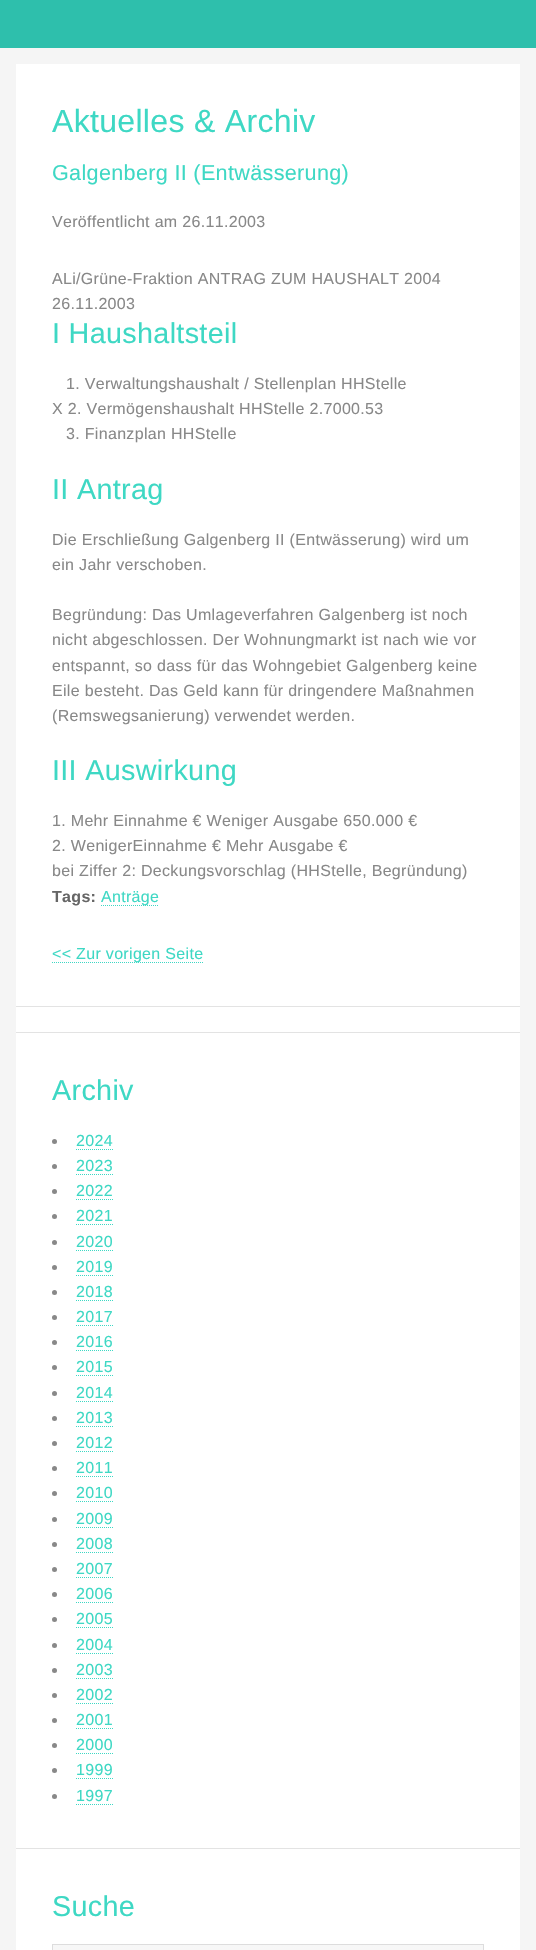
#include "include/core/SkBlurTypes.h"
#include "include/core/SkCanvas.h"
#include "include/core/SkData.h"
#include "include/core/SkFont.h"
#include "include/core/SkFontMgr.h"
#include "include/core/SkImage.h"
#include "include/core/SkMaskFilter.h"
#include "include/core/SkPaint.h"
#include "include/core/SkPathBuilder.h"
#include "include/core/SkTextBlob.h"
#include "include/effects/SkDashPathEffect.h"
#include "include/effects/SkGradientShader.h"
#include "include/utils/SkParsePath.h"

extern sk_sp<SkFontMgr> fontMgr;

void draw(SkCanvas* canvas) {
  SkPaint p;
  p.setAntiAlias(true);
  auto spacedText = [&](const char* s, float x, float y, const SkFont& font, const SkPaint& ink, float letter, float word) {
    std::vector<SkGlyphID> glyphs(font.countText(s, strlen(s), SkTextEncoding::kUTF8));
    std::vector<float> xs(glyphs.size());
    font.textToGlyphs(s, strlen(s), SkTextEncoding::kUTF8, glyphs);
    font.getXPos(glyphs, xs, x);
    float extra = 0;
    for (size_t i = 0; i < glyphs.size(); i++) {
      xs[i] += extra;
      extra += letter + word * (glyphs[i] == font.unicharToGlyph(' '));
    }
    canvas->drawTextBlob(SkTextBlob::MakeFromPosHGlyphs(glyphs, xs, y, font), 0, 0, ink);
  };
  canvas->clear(SkColorSetRGB(245, 245, 245));
  p.setColor(SkColorSetRGB(46, 191, 172));
  canvas->drawRect(SkRect::MakeLTRB(0, 0, 536, 48), p);
  p.setColor(SK_ColorWHITE);
  canvas->drawRect(SkRect::MakeLTRB(16, 64, 520, 1950), p);
  p.setStyle(SkPaint::kStroke_Style);
  p.setStrokeWidth(1);
  p.setColor(SkColorSetRGB(62, 216, 196));
  p.setPathEffect(SkDashPathEffect::Make({{1, 1}}, 0));
  canvas->drawPath(SkPathBuilder().moveTo(101, 905.5f).lineTo(159, 905.5f).detach(), p);
  p.setPathEffect(nullptr);
  p.setPathEffect(SkDashPathEffect::Make({{1, 1}}, 0));
  canvas->drawPath(SkPathBuilder().moveTo(52, 962.5f).lineTo(203, 962.5f).detach(), p);
  p.setPathEffect(nullptr);
  p.setStyle(SkPaint::kFill_Style);
  p.setColor(SkColorSetRGB(227, 227, 227));
  canvas->drawRect(SkRect::MakeLTRB(16, 1006, 520, 1007), p);
  canvas->drawRect(SkRect::MakeLTRB(16, 1032, 520, 1033), p);
  p.setColor(SkColorSetRGB(136, 136, 136));
  canvas->drawCircle(54.5f, 1141.5f, 2.5f, p);
  p.setStyle(SkPaint::kStroke_Style);
  p.setColor(SkColorSetRGB(62, 216, 196));
  p.setPathEffect(SkDashPathEffect::Make({{1, 1}}, 0));
  canvas->drawPath(SkPathBuilder().moveTo(76, 1149.5f).lineTo(113, 1149.5f).detach(), p);
  p.setPathEffect(nullptr);
  p.setStyle(SkPaint::kFill_Style);
  p.setColor(SkColorSetRGB(136, 136, 136));
  canvas->drawCircle(54.5f, 1166.5f, 2.5f, p);
  p.setStyle(SkPaint::kStroke_Style);
  p.setColor(SkColorSetRGB(62, 216, 196));
  p.setPathEffect(SkDashPathEffect::Make({{1, 1}}, 0));
  canvas->drawPath(SkPathBuilder().moveTo(76, 1174.5f).lineTo(113, 1174.5f).detach(), p);
  p.setPathEffect(nullptr);
  p.setStyle(SkPaint::kFill_Style);
  p.setColor(SkColorSetRGB(136, 136, 136));
  canvas->drawCircle(54.5f, 1191.5f, 2.5f, p);
  p.setStyle(SkPaint::kStroke_Style);
  p.setColor(SkColorSetRGB(62, 216, 196));
  p.setPathEffect(SkDashPathEffect::Make({{1, 1}}, 0));
  canvas->drawPath(SkPathBuilder().moveTo(76, 1199.5f).lineTo(113, 1199.5f).detach(), p);
  p.setPathEffect(nullptr);
  p.setStyle(SkPaint::kFill_Style);
  p.setColor(SkColorSetRGB(136, 136, 136));
  canvas->drawCircle(54.5f, 1216.5f, 2.5f, p);
  p.setStyle(SkPaint::kStroke_Style);
  p.setColor(SkColorSetRGB(62, 216, 196));
  p.setPathEffect(SkDashPathEffect::Make({{1, 1}}, 0));
  canvas->drawPath(SkPathBuilder().moveTo(76, 1224.5f).lineTo(113, 1224.5f).detach(), p);
  p.setPathEffect(nullptr);
  p.setStyle(SkPaint::kFill_Style);
  p.setColor(SkColorSetRGB(136, 136, 136));
  canvas->drawCircle(54.5f, 1242.5f, 2.5f, p);
  p.setStyle(SkPaint::kStroke_Style);
  p.setColor(SkColorSetRGB(62, 216, 196));
  p.setPathEffect(SkDashPathEffect::Make({{1, 1}}, 0));
  canvas->drawPath(SkPathBuilder().moveTo(76, 1250.5f).lineTo(113, 1250.5f).detach(), p);
  p.setPathEffect(nullptr);
  p.setStyle(SkPaint::kFill_Style);
  p.setColor(SkColorSetRGB(136, 136, 136));
  canvas->drawCircle(54.5f, 1267.5f, 2.5f, p);
  p.setStyle(SkPaint::kStroke_Style);
  p.setColor(SkColorSetRGB(62, 216, 196));
  p.setPathEffect(SkDashPathEffect::Make({{1, 1}}, 0));
  canvas->drawPath(SkPathBuilder().moveTo(76, 1275.5f).lineTo(113, 1275.5f).detach(), p);
  p.setPathEffect(nullptr);
  p.setStyle(SkPaint::kFill_Style);
  p.setColor(SkColorSetRGB(136, 136, 136));
  canvas->drawCircle(54.5f, 1292.5f, 2.5f, p);
  p.setStyle(SkPaint::kStroke_Style);
  p.setColor(SkColorSetRGB(62, 216, 196));
  p.setPathEffect(SkDashPathEffect::Make({{1, 1}}, 0));
  canvas->drawPath(SkPathBuilder().moveTo(76, 1300.5f).lineTo(113, 1300.5f).detach(), p);
  p.setPathEffect(nullptr);
  p.setStyle(SkPaint::kFill_Style);
  p.setColor(SkColorSetRGB(136, 136, 136));
  canvas->drawCircle(54.5f, 1317.5f, 2.5f, p);
  p.setStyle(SkPaint::kStroke_Style);
  p.setColor(SkColorSetRGB(62, 216, 196));
  p.setPathEffect(SkDashPathEffect::Make({{1, 1}}, 0));
  canvas->drawPath(SkPathBuilder().moveTo(76, 1325.5f).lineTo(113, 1325.5f).detach(), p);
  p.setPathEffect(nullptr);
  p.setStyle(SkPaint::kFill_Style);
  p.setColor(SkColorSetRGB(136, 136, 136));
  canvas->drawCircle(54.5f, 1342.5f, 2.5f, p);
  p.setStyle(SkPaint::kStroke_Style);
  p.setColor(SkColorSetRGB(62, 216, 196));
  p.setPathEffect(SkDashPathEffect::Make({{1, 1}}, 0));
  canvas->drawPath(SkPathBuilder().moveTo(76, 1350.5f).lineTo(113, 1350.5f).detach(), p);
  p.setPathEffect(nullptr);
  p.setStyle(SkPaint::kFill_Style);
  p.setColor(SkColorSetRGB(136, 136, 136));
  canvas->drawCircle(54.5f, 1367.5f, 2.5f, p);
  p.setStyle(SkPaint::kStroke_Style);
  p.setColor(SkColorSetRGB(62, 216, 196));
  p.setPathEffect(SkDashPathEffect::Make({{1, 1}}, 0));
  canvas->drawPath(SkPathBuilder().moveTo(76, 1375.5f).lineTo(113, 1375.5f).detach(), p);
  p.setPathEffect(nullptr);
  p.setStyle(SkPaint::kFill_Style);
  p.setColor(SkColorSetRGB(136, 136, 136));
  canvas->drawCircle(54.5f, 1393.5f, 2.5f, p);
  p.setStyle(SkPaint::kStroke_Style);
  p.setColor(SkColorSetRGB(62, 216, 196));
  p.setPathEffect(SkDashPathEffect::Make({{1, 1}}, 0));
  canvas->drawPath(SkPathBuilder().moveTo(76, 1401.5f).lineTo(113, 1401.5f).detach(), p);
  p.setPathEffect(nullptr);
  p.setStyle(SkPaint::kFill_Style);
  p.setColor(SkColorSetRGB(136, 136, 136));
  canvas->drawCircle(54.5f, 1418.5f, 2.5f, p);
  p.setStyle(SkPaint::kStroke_Style);
  p.setColor(SkColorSetRGB(62, 216, 196));
  p.setPathEffect(SkDashPathEffect::Make({{1, 1}}, 0));
  canvas->drawPath(SkPathBuilder().moveTo(76, 1426.5f).lineTo(113, 1426.5f).detach(), p);
  p.setPathEffect(nullptr);
  p.setStyle(SkPaint::kFill_Style);
  p.setColor(SkColorSetRGB(136, 136, 136));
  canvas->drawCircle(54.5f, 1443.5f, 2.5f, p);
  p.setStyle(SkPaint::kStroke_Style);
  p.setColor(SkColorSetRGB(62, 216, 196));
  p.setPathEffect(SkDashPathEffect::Make({{1, 1}}, 0));
  canvas->drawPath(SkPathBuilder().moveTo(76, 1451.5f).lineTo(113, 1451.5f).detach(), p);
  p.setPathEffect(nullptr);
  p.setStyle(SkPaint::kFill_Style);
  p.setColor(SkColorSetRGB(136, 136, 136));
  canvas->drawCircle(54.5f, 1468.5f, 2.5f, p);
  p.setStyle(SkPaint::kStroke_Style);
  p.setColor(SkColorSetRGB(62, 216, 196));
  p.setPathEffect(SkDashPathEffect::Make({{1, 1}}, 0));
  canvas->drawPath(SkPathBuilder().moveTo(76, 1476.5f).lineTo(113, 1476.5f).detach(), p);
  p.setPathEffect(nullptr);
  p.setStyle(SkPaint::kFill_Style);
  p.setColor(SkColorSetRGB(136, 136, 136));
  canvas->drawCircle(54.5f, 1493.5f, 2.5f, p);
  p.setStyle(SkPaint::kStroke_Style);
  p.setColor(SkColorSetRGB(62, 216, 196));
  p.setPathEffect(SkDashPathEffect::Make({{1, 1}}, 0));
  canvas->drawPath(SkPathBuilder().moveTo(76, 1501.5f).lineTo(113, 1501.5f).detach(), p);
  p.setPathEffect(nullptr);
  p.setStyle(SkPaint::kFill_Style);
  p.setColor(SkColorSetRGB(136, 136, 136));
  canvas->drawCircle(54.5f, 1519.5f, 2.5f, p);
  p.setStyle(SkPaint::kStroke_Style);
  p.setColor(SkColorSetRGB(62, 216, 196));
  p.setPathEffect(SkDashPathEffect::Make({{1, 1}}, 0));
  canvas->drawPath(SkPathBuilder().moveTo(76, 1527.5f).lineTo(113, 1527.5f).detach(), p);
  p.setPathEffect(nullptr);
  p.setStyle(SkPaint::kFill_Style);
  p.setColor(SkColorSetRGB(136, 136, 136));
  canvas->drawCircle(54.5f, 1544.5f, 2.5f, p);
  p.setStyle(SkPaint::kStroke_Style);
  p.setColor(SkColorSetRGB(62, 216, 196));
  p.setPathEffect(SkDashPathEffect::Make({{1, 1}}, 0));
  canvas->drawPath(SkPathBuilder().moveTo(76, 1552.5f).lineTo(113, 1552.5f).detach(), p);
  p.setPathEffect(nullptr);
  p.setStyle(SkPaint::kFill_Style);
  p.setColor(SkColorSetRGB(136, 136, 136));
  canvas->drawCircle(54.5f, 1569.5f, 2.5f, p);
  p.setStyle(SkPaint::kStroke_Style);
  p.setColor(SkColorSetRGB(62, 216, 196));
  p.setPathEffect(SkDashPathEffect::Make({{1, 1}}, 0));
  canvas->drawPath(SkPathBuilder().moveTo(76, 1577.5f).lineTo(113, 1577.5f).detach(), p);
  p.setPathEffect(nullptr);
  p.setStyle(SkPaint::kFill_Style);
  p.setColor(SkColorSetRGB(136, 136, 136));
  canvas->drawCircle(54.5f, 1594.5f, 2.5f, p);
  p.setStyle(SkPaint::kStroke_Style);
  p.setColor(SkColorSetRGB(62, 216, 196));
  p.setPathEffect(SkDashPathEffect::Make({{1, 1}}, 0));
  canvas->drawPath(SkPathBuilder().moveTo(76, 1602.5f).lineTo(113, 1602.5f).detach(), p);
  p.setPathEffect(nullptr);
  p.setStyle(SkPaint::kFill_Style);
  p.setColor(SkColorSetRGB(136, 136, 136));
  canvas->drawCircle(54.5f, 1619.5f, 2.5f, p);
  p.setStyle(SkPaint::kStroke_Style);
  p.setColor(SkColorSetRGB(62, 216, 196));
  p.setPathEffect(SkDashPathEffect::Make({{1, 1}}, 0));
  canvas->drawPath(SkPathBuilder().moveTo(76, 1627.5f).lineTo(113, 1627.5f).detach(), p);
  p.setPathEffect(nullptr);
  p.setStyle(SkPaint::kFill_Style);
  p.setColor(SkColorSetRGB(136, 136, 136));
  canvas->drawCircle(54.5f, 1645.5f, 2.5f, p);
  p.setStyle(SkPaint::kStroke_Style);
  p.setColor(SkColorSetRGB(62, 216, 196));
  p.setPathEffect(SkDashPathEffect::Make({{1, 1}}, 0));
  canvas->drawPath(SkPathBuilder().moveTo(76, 1653.5f).lineTo(113, 1653.5f).detach(), p);
  p.setPathEffect(nullptr);
  p.setStyle(SkPaint::kFill_Style);
  p.setColor(SkColorSetRGB(136, 136, 136));
  canvas->drawCircle(54.5f, 1670.5f, 2.5f, p);
  p.setStyle(SkPaint::kStroke_Style);
  p.setColor(SkColorSetRGB(62, 216, 196));
  p.setPathEffect(SkDashPathEffect::Make({{1, 1}}, 0));
  canvas->drawPath(SkPathBuilder().moveTo(76, 1678.5f).lineTo(113, 1678.5f).detach(), p);
  p.setPathEffect(nullptr);
  p.setStyle(SkPaint::kFill_Style);
  p.setColor(SkColorSetRGB(136, 136, 136));
  canvas->drawCircle(54.5f, 1695.5f, 2.5f, p);
  p.setStyle(SkPaint::kStroke_Style);
  p.setColor(SkColorSetRGB(62, 216, 196));
  p.setPathEffect(SkDashPathEffect::Make({{1, 1}}, 0));
  canvas->drawPath(SkPathBuilder().moveTo(76, 1703.5f).lineTo(113, 1703.5f).detach(), p);
  p.setPathEffect(nullptr);
  p.setStyle(SkPaint::kFill_Style);
  p.setColor(SkColorSetRGB(136, 136, 136));
  canvas->drawCircle(54.5f, 1720.5f, 2.5f, p);
  p.setStyle(SkPaint::kStroke_Style);
  p.setColor(SkColorSetRGB(62, 216, 196));
  p.setPathEffect(SkDashPathEffect::Make({{1, 1}}, 0));
  canvas->drawPath(SkPathBuilder().moveTo(76, 1728.5f).lineTo(113, 1728.5f).detach(), p);
  p.setPathEffect(nullptr);
  p.setStyle(SkPaint::kFill_Style);
  p.setColor(SkColorSetRGB(136, 136, 136));
  canvas->drawCircle(54.5f, 1745.5f, 2.5f, p);
  p.setStyle(SkPaint::kStroke_Style);
  p.setColor(SkColorSetRGB(62, 216, 196));
  p.setPathEffect(SkDashPathEffect::Make({{1, 1}}, 0));
  canvas->drawPath(SkPathBuilder().moveTo(76, 1753.5f).lineTo(113, 1753.5f).detach(), p);
  p.setPathEffect(nullptr);
  p.setStyle(SkPaint::kFill_Style);
  p.setColor(SkColorSetRGB(136, 136, 136));
  canvas->drawCircle(54.5f, 1770.5f, 2.5f, p);
  p.setStyle(SkPaint::kStroke_Style);
  p.setColor(SkColorSetRGB(62, 216, 196));
  p.setPathEffect(SkDashPathEffect::Make({{1, 1}}, 0));
  canvas->drawPath(SkPathBuilder().moveTo(76, 1778.5f).lineTo(113, 1778.5f).detach(), p);
  p.setPathEffect(nullptr);
  p.setStyle(SkPaint::kFill_Style);
  p.setColor(SkColorSetRGB(136, 136, 136));
  canvas->drawCircle(54.5f, 1796.5f, 2.5f, p);
  p.setStyle(SkPaint::kStroke_Style);
  p.setColor(SkColorSetRGB(62, 216, 196));
  p.setPathEffect(SkDashPathEffect::Make({{1, 1}}, 0));
  canvas->drawPath(SkPathBuilder().moveTo(76, 1804.5f).lineTo(113, 1804.5f).detach(), p);
  p.setPathEffect(nullptr);
  p.setStyle(SkPaint::kFill_Style);
  p.setColor(SkColorSetRGB(227, 227, 227));
  canvas->drawRect(SkRect::MakeLTRB(16, 1848, 520, 1849), p);
  p.setColor(SkColorSetRGB(247, 247, 247));
  canvas->drawRect(SkRect::MakeLTRB(52.5f, 1944.5f, 483.5f, 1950.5f), p);
  p.setStyle(SkPaint::kStroke_Style);
  p.setColor(SkColorSetRGB(221, 221, 221));
  canvas->drawRect(SkRect::MakeLTRB(52.5f, 1944.5f, 483.5f, 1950.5f), p);
  SkFont font1(fontMgr->matchFamilyStyle("Liberation Sans", SkFontStyle::Normal()), 32);
  font1.setSubpixel(true);
  p.setStyle(SkPaint::kFill_Style);
  p.setColor(SkColorSetRGB(62, 216, 196));
  spacedText("Aktuelles & Archiv", 52, 132, font1, p, 0.32f, 0);
  SkFont font2(fontMgr->matchFamilyStyle("Liberation Sans", SkFontStyle::Normal()), 21.6f);
  font2.setSubpixel(true);
  spacedText("Galgenberg II (Entwässerung)", 52, 180, font2, p, 0.32f, 0);
  SkFont font3(fontMgr->matchFamilyStyle("Liberation Sans", SkFontStyle::Normal()), 16);
  font3.setSubpixel(true);
  p.setColor(SkColorSetRGB(136, 136, 136));
  spacedText("Veröffentlicht am 26.11.2003", 52, 227, font3, p, 0.32f, 0);
  spacedText("ALi/Grüne-Fraktion ANTRAG ZUM HAUSHALT 2004", 52, 284, font3, p, 0.32f, 0);
  spacedText("26.11.2003", 52, 309, font3, p, 0.32f, 0);
  SkFont font4(fontMgr->matchFamilyStyle("Liberation Sans", SkFontStyle::Normal()), 28.75f);
  font4.setSubpixel(true);
  p.setColor(SkColorSetRGB(62, 216, 196));
  spacedText("I Haushaltsteil", 52, 343, font4, p, 0.32f, 0);
  p.setColor(SkColorSetRGB(136, 136, 136));
  spacedText("1. Verwaltungshaushalt / Stellenplan HHStelle", 66, 389, font3, p, 0.32f, 0);
  spacedText("X 2. Vermögenshaushalt HHStelle 2.7000.53", 52, 414, font3, p, 0.32f, 0);
  spacedText("3. Finanzplan HHStelle", 66, 439, font3, p, 0.32f, 0);
  p.setColor(SkColorSetRGB(62, 216, 196));
  spacedText("II Antrag", 52, 499, font4, p, 0.32f, 0);
  p.setColor(SkColorSetRGB(136, 136, 136));
  spacedText("Die Erschließung Galgenberg II (Entwässerung) wird um", 52, 545, font3, p, 0.32f, 0);
  spacedText("ein Jahr verschoben.", 52, 570, font3, p, 0.32f, 0);
  spacedText("Begründung: Das Umlageverfahren Galgenberg ist noch", 52, 620, font3, p, 0.32f, 0);
  spacedText("nicht abgeschlossen. Der Wohnungmarkt ist nach wie vor", 52, 645, font3, p, 0.32f, 0);
  spacedText("entspannt, so dass für das Wohngebiet Galgenberg keine", 52, 671, font3, p, 0.32f, 0);
  spacedText("Eile besteht. Das Geld kann für dringendere Maßnahmen", 52, 696, font3, p, 0.32f, 0);
  spacedText("(Remswegsanierung) verwendet werden.", 52, 721, font3, p, 0.32f, 0);
  p.setColor(SkColorSetRGB(62, 216, 196));
  spacedText("III Auswirkung", 52, 780, font4, p, 0.32f, 0);
  p.setColor(SkColorSetRGB(136, 136, 136));
  spacedText("1. Mehr Einnahme € Weniger Ausgabe 650.000 €", 52, 826, font3, p, 0.32f, 0);
  spacedText("2. WenigerEinnahme € Mehr Ausgabe €", 52, 851, font3, p, 0.32f, 0);
  spacedText("bei Ziffer 2: Deckungsvorschlag (HHStelle, Begründung)", 52, 876, font3, p, 0.32f, 0);
  SkFont font5(fontMgr->matchFamilyStyle("Liberation Sans", SkFontStyle::Bold()), 16);
  font5.setSubpixel(true);
  p.setColor(SkColorSetRGB(102, 102, 102));
  spacedText("Tags:", 52, 902, font5, p, 0.32f, 0);
  p.setColor(SkColorSetRGB(62, 216, 196));
  spacedText("Anträge", 101, 902, font3, p, 0.32f, 0);
  spacedText("<< Zur vorigen Seite", 52, 959, font3, p, 0.32f, 0);
  spacedText("Archiv", 52, 1100, font4, p, 0.32f, 0);
  spacedText("2024", 76, 1146, font3, p, 0.32f, 0);
  spacedText("2023", 76, 1171, font3, p, 0.32f, 0);
  spacedText("2022", 76, 1196, font3, p, 0.32f, 0);
  spacedText("2021", 76, 1221, font3, p, 0.32f, 0);
  spacedText("2020", 76, 1247, font3, p, 0.32f, 0);
  spacedText("2019", 76, 1272, font3, p, 0.32f, 0);
  spacedText("2018", 76, 1297, font3, p, 0.32f, 0);
  spacedText("2017", 76, 1322, font3, p, 0.32f, 0);
  spacedText("2016", 76, 1347, font3, p, 0.32f, 0);
  spacedText("2015", 76, 1372, font3, p, 0.32f, 0);
  spacedText("2014", 76, 1398, font3, p, 0.32f, 0);
  spacedText("2013", 76, 1423, font3, p, 0.32f, 0);
  spacedText("2012", 76, 1448, font3, p, 0.32f, 0);
  spacedText("2011", 76, 1473, font3, p, 0.32f, 0);
  spacedText("2010", 76, 1498, font3, p, 0.32f, 0);
  spacedText("2009", 76, 1524, font3, p, 0.32f, 0);
  spacedText("2008", 76, 1549, font3, p, 0.32f, 0);
  spacedText("2007", 76, 1574, font3, p, 0.32f, 0);
  spacedText("2006", 76, 1599, font3, p, 0.32f, 0);
  spacedText("2005", 76, 1624, font3, p, 0.32f, 0);
  spacedText("2004", 76, 1650, font3, p, 0.32f, 0);
  spacedText("2003", 76, 1675, font3, p, 0.32f, 0);
  spacedText("2002", 76, 1700, font3, p, 0.32f, 0);
  spacedText("2001", 76, 1725, font3, p, 0.32f, 0);
  spacedText("2000", 76, 1750, font3, p, 0.32f, 0);
  spacedText("1999", 76, 1775, font3, p, 0.32f, 0);
  spacedText("1997", 76, 1801, font3, p, 0.32f, 0);
  spacedText("Suche", 52, 1916, font4, p, 0.32f, 0);
}
